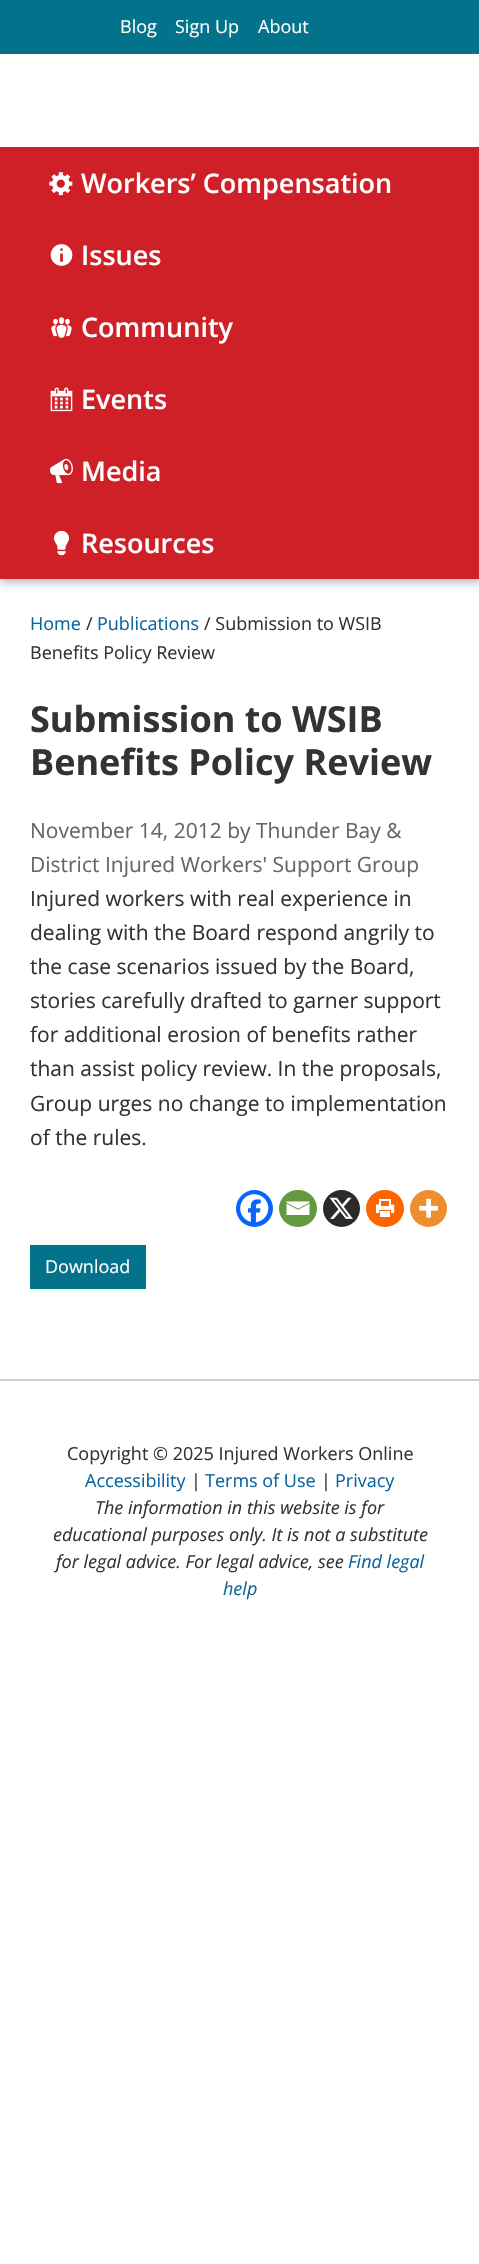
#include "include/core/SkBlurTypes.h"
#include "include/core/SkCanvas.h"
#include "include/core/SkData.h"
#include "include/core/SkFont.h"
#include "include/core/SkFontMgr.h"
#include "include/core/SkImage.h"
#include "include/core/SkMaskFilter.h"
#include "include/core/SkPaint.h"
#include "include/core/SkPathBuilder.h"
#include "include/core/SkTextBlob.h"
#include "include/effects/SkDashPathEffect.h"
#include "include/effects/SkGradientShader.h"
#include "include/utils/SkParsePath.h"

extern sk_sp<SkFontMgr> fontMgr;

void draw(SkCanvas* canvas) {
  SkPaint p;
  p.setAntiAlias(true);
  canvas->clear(SK_ColorWHITE);
  p.setColor(SkColorSetARGB(77, 0, 0, 0));
  p.setMaskFilter(SkMaskFilter::MakeBlur(kNormal_SkBlurStyle, 4.5f));
  canvas->drawRect(SkRect::MakeLTRB(-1, 147, 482, 582), p);
  p.setMaskFilter(nullptr);
  p.setColor(SK_ColorWHITE);
  canvas->drawRect(SkRect::MakeLTRB(0, 139, 479, 147), p);
  p.setColor(SkColorSetRGB(3, 115, 140));
  canvas->drawRect(SkRect::MakeLTRB(0, 0, 479, 54), p);
  p.setColor(SkColorSetRGB(206, 32, 38));
  canvas->drawRect(SkRect::MakeLTRB(0, 147, 479, 579), p);
  canvas->drawImageRect(SkImages::DeferredFromEncodedData(SkData::MakeFromFileName("images/1.png")), SkRect::MakeLTRB(49, 172, 73, 196), SkSamplingOptions());
  canvas->drawImageRect(SkImages::DeferredFromEncodedData(SkData::MakeFromFileName("images/2.png")), SkRect::MakeLTRB(50, 244, 73, 266), SkSamplingOptions());
  canvas->drawImageRect(SkImages::DeferredFromEncodedData(SkData::MakeFromFileName("images/3.png")), SkRect::MakeLTRB(51, 317, 72, 338), SkSamplingOptions());
  canvas->drawImageRect(SkImages::DeferredFromEncodedData(SkData::MakeFromFileName("images/4.png")), SkRect::MakeLTRB(50, 387, 73, 412), SkSamplingOptions());
  canvas->drawImageRect(SkImages::DeferredFromEncodedData(SkData::MakeFromFileName("images/5.png")), SkRect::MakeLTRB(50, 458, 73, 484), SkSamplingOptions());
  canvas->drawImageRect(SkImages::DeferredFromEncodedData(SkData::MakeFromFileName("images/6.png")), SkRect::MakeLTRB(53, 530, 70, 556), SkSamplingOptions());
  p.setColor(SkColorSetRGB(7, 101, 254));
  canvas->drawCircle(254.5f, 1208.5f, 18.5f, p);
  canvas->drawImageRect(SkImages::DeferredFromEncodedData(SkData::MakeFromFileName("images/7.png")), SkRect::MakeLTRB(240, 1194, 269, 1223), SkSamplingOptions());
  p.setColor(SkColorSetRGB(100, 154, 63));
  canvas->drawRoundRect(SkRect::MakeLTRB(279, 1190, 317, 1227), 18.5f, 18.5f, p);
  canvas->drawImageRect(SkImages::DeferredFromEncodedData(SkData::MakeFromFileName("images/8.png")), SkRect::MakeLTRB(286, 1201, 310, 1215), SkSamplingOptions());
  p.setColor(SkColorSetRGB(42, 42, 42));
  canvas->drawCircle(341.5f, 1208.5f, 18.5f, p);
  canvas->drawImageRect(SkImages::DeferredFromEncodedData(SkData::MakeFromFileName("images/9.png")), SkRect::MakeLTRB(329, 1197, 353, 1219), SkSamplingOptions());
  p.setColor(SkColorSetRGB(253, 101, 0));
  canvas->drawRoundRect(SkRect::MakeLTRB(366, 1190, 404, 1227), 18.5f, 18.5f, p);
  canvas->drawImageRect(SkImages::DeferredFromEncodedData(SkData::MakeFromFileName("images/10.png")), SkRect::MakeLTRB(375, 1199, 395, 1217), SkSamplingOptions());
  p.setColor(SkColorSetRGB(238, 142, 45));
  canvas->drawCircle(428.5f, 1208.5f, 18.5f, p);
  canvas->drawImageRect(SkImages::DeferredFromEncodedData(SkData::MakeFromFileName("images/11.png")), SkRect::MakeLTRB(419, 1198, 438, 1218), SkSamplingOptions());
  p.setColor(SkColorSetRGB(3, 115, 140));
  canvas->drawRect(SkRect::MakeLTRB(30, 1245, 146, 1289), p);
  p.setColor(SkColorSetRGB(204, 204, 204));
  canvas->drawRect(SkRect::MakeLTRB(0, 1379, 479, 1381), p);
  SkFont font1(fontMgr->matchFamilyStyle("Open Sans", SkFontStyle::Normal()), 18);
  font1.setSubpixel(true);
  p.setColor(SK_ColorWHITE);
  canvas->drawString("Blog", 120, 33, font1, p);
  canvas->drawString("Sign Up", 175, 33, font1, p);
  canvas->drawString("About", 258, 33, font1, p);
  SkFont font2(fontMgr->matchFamilyStyle("Open Sans", SkFontStyle(600, SkFontStyle::kNormal_Width, SkFontStyle::kUpright_Slant)), 27);
  font2.setSubpixel(true);
  canvas->drawString("Workers’ Compensation", 81, 193, font2, p);
  canvas->drawString("Issues", 81, 265, font2, p);
  canvas->drawString("Community", 81, 337, font2, p);
  canvas->drawString("Events", 81, 409, font2, p);
  canvas->drawString("Media", 81, 481, font2, p);
  canvas->drawString("Resources", 81, 553, font2, p);
  p.setColor(SkColorSetRGB(9, 101, 155));
  canvas->drawString("Home", 30, 630, font1, p);
  p.setColor(SkColorSetRGB(51, 51, 51));
  canvas->drawString("/", 86, 630, font1, p);
  p.setColor(SkColorSetRGB(9, 101, 155));
  canvas->drawString("Publications", 97, 630, font1, p);
  p.setColor(SkColorSetRGB(51, 51, 51));
  canvas->drawString("/ Submission to WSIB", 204, 630, font1, p);
  canvas->drawString("Benefits Policy Review", 30, 659, font1, p);
  SkFont font3(fontMgr->matchFamilyStyle("Open Sans", SkFontStyle::Bold()), 36);
  font3.setSubpixel(true);
  canvas->drawString("Submission to WSIB", 30, 732, font3, p);
  canvas->drawString("Benefits Policy Review", 30, 775, font3, p);
  SkFont font4(fontMgr->matchFamilyStyle("Open Sans", SkFontStyle::Normal()), 21);
  font4.setSubpixel(true);
  p.setColor(SkColorSetRGB(102, 102, 102));
  canvas->drawString("November 14, 2012 by Thunder Bay &", 30, 838, font4, p);
  canvas->drawString("District Injured Workers' Support Group", 30, 872, font4, p);
  p.setColor(SkColorSetRGB(51, 51, 51));
  canvas->drawString("Injured workers with real experience in", 30, 906, font4, p);
  canvas->drawString("dealing with the Board respond angrily to", 30, 940, font4, p);
  canvas->drawString("the case scenarios issued by the Board,", 30, 974, font4, p);
  canvas->drawString("stories carefully drafted to garner support", 30, 1008, font4, p);
  canvas->drawString("for additional erosion of benefits rather", 30, 1042, font4, p);
  canvas->drawString("than assist policy review. In the proposals,", 30, 1076, font4, p);
  canvas->drawString("Group urges no change to implementation", 30, 1111, font4, p);
  canvas->drawString("of the rules.", 30, 1145, font4, p);
  p.setColor(SK_ColorWHITE);
  canvas->drawString("Download", 45, 1273, font1, p);
  p.setColor(SkColorSetRGB(51, 51, 51));
  canvas->drawString("Copyright © 2025 Injured Workers Online", 67, 1460, font1, p);
  p.setColor(SkColorSetRGB(9, 101, 155));
  canvas->drawString("Accessibility", 85, 1487, font1, p);
  p.setColor(SkColorSetRGB(51, 51, 51));
  canvas->drawString("|", 191, 1487, font1, p);
  p.setColor(SkColorSetRGB(9, 101, 155));
  canvas->drawString("Terms of Use", 205, 1487, font1, p);
  p.setColor(SkColorSetRGB(51, 51, 51));
  canvas->drawString("|", 321, 1487, font1, p);
  p.setColor(SkColorSetRGB(9, 101, 155));
  canvas->drawString("Privacy", 335, 1487, font1, p);
  SkFont font5(fontMgr->matchFamilyStyle("Open Sans", SkFontStyle::Italic()), 18);
  font5.setSubpixel(true);
  p.setColor(SkColorSetRGB(51, 51, 51));
  canvas->drawString("The information in this website is for", 95, 1514, font5, p);
  canvas->drawString("educational purposes only. It is not a substitute", 53, 1541, font5, p);
  canvas->drawString("for legal advice. For legal advice, see", 56, 1568, font5, p);
  p.setColor(SkColorSetRGB(9, 101, 155));
  canvas->drawString("Find legal", 348, 1568, font5, p);
  canvas->drawString("help", 223, 1595, font5, p);
}
